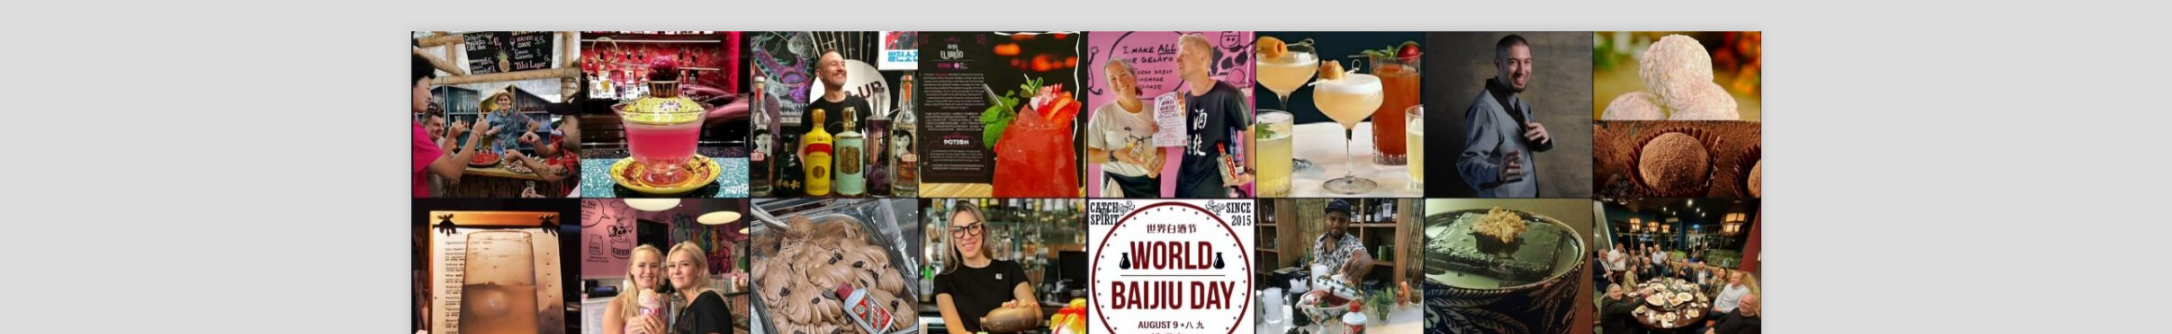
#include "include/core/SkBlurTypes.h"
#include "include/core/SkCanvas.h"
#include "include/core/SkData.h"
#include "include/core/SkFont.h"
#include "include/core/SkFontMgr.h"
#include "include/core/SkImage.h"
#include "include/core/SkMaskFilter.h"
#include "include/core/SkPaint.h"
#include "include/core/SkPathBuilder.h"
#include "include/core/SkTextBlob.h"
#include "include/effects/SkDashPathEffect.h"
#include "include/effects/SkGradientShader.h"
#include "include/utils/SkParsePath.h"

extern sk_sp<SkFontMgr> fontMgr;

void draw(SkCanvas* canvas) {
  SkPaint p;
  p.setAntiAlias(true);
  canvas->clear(SkColorSetRGB(221, 221, 221));
  p.setColor(SkColorSetARGB(43, 50, 50, 50));
  p.setMaskFilter(SkMaskFilter::MakeBlur(kNormal_SkBlurStyle, 6));
  canvas->drawRect(SkRect::MakeLTRB(411, 31, 1761, 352), p);
  p.setMaskFilter(nullptr);
  p.setColor(SK_ColorWHITE);
  canvas->drawRect(SkRect::MakeLTRB(411, 31, 1761, 334), p);
  canvas->drawImageRect(SkImages::DeferredFromEncodedData(SkData::MakeFromFileName("images/1.png")), SkRect::MakeLTRB(411, 31, 1762, 334), SkSamplingOptions());
}
